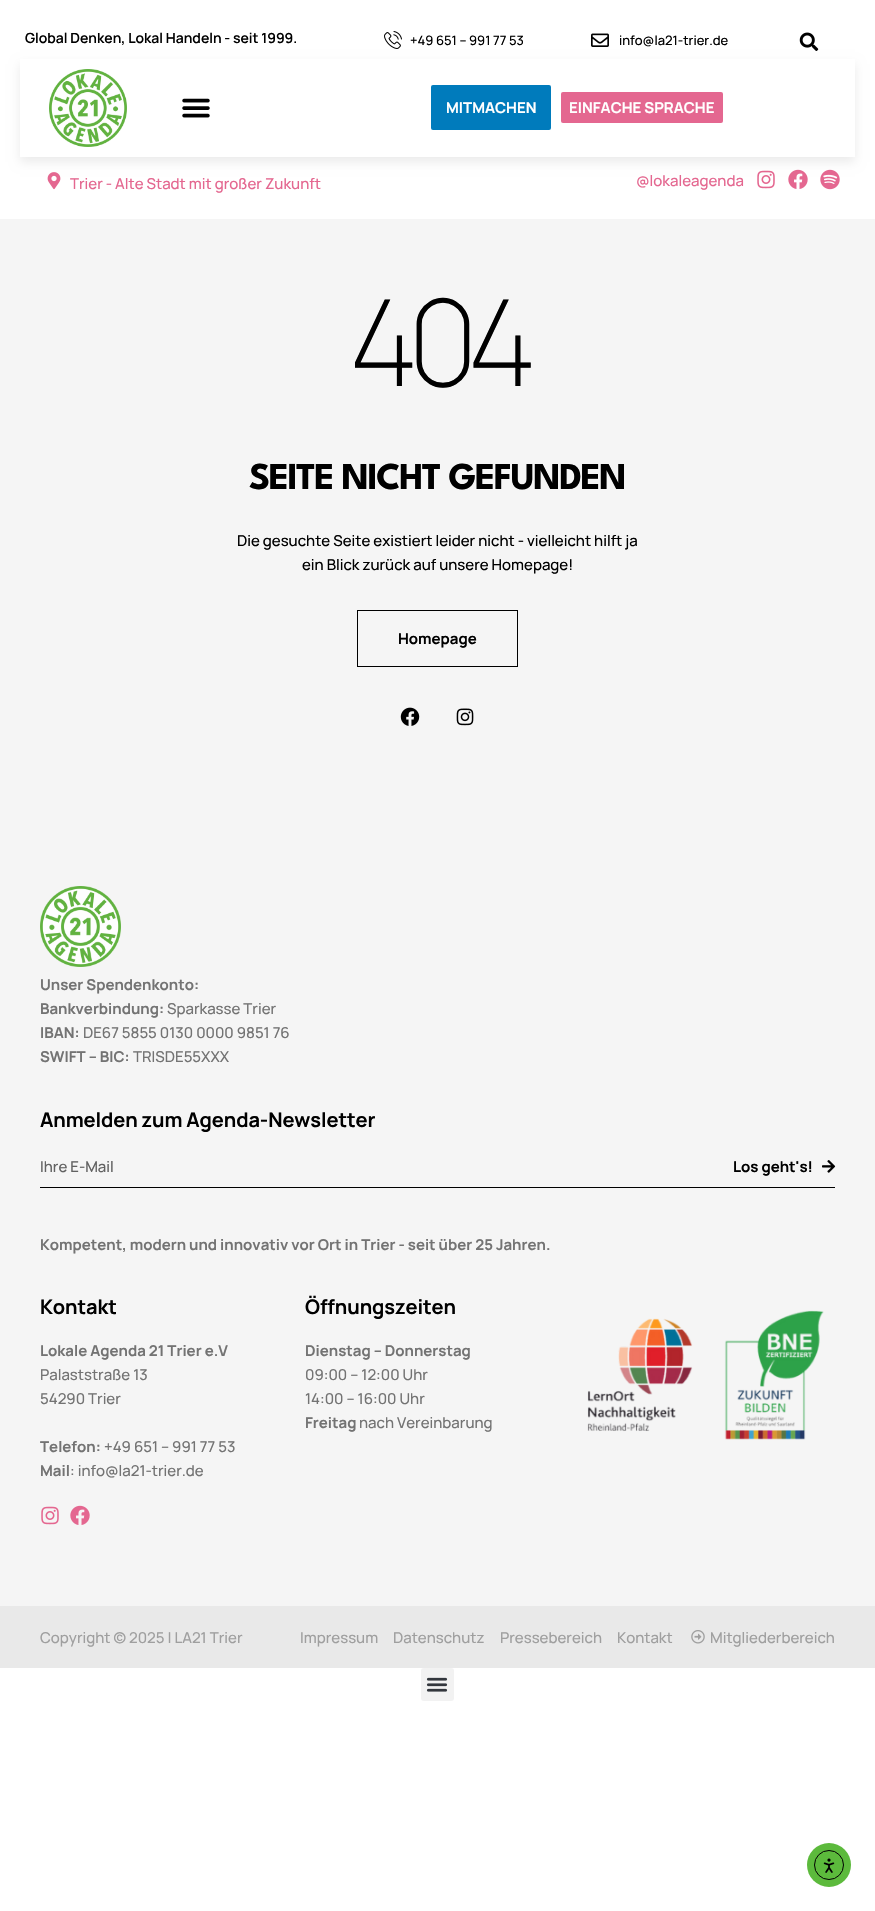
#include "include/core/SkBlurTypes.h"
#include "include/core/SkCanvas.h"
#include "include/core/SkData.h"
#include "include/core/SkFont.h"
#include "include/core/SkFontMgr.h"
#include "include/core/SkImage.h"
#include "include/core/SkMaskFilter.h"
#include "include/core/SkPaint.h"
#include "include/core/SkPathBuilder.h"
#include "include/core/SkTextBlob.h"
#include "include/effects/SkDashPathEffect.h"
#include "include/effects/SkGradientShader.h"
#include "include/utils/SkParsePath.h"

extern sk_sp<SkFontMgr> fontMgr;

void draw(SkCanvas* canvas) {
  SkPaint p;
  p.setAntiAlias(true);
  auto spacedText = [&](const char* s, float x, float y, const SkFont& font, const SkPaint& ink, float letter, float word) {
    std::vector<SkGlyphID> glyphs(font.countText(s, strlen(s), SkTextEncoding::kUTF8));
    std::vector<float> xs(glyphs.size());
    font.textToGlyphs(s, strlen(s), SkTextEncoding::kUTF8, glyphs);
    font.getXPos(glyphs, xs, x);
    float extra = 0;
    for (size_t i = 0; i < glyphs.size(); i++) {
      xs[i] += extra;
      extra += letter + word * (glyphs[i] == font.unicharToGlyph(' '));
    }
    canvas->drawTextBlob(SkTextBlob::MakeFromPosHGlyphs(glyphs, xs, y, font), 0, 0, ink);
  };
  canvas->clear(SK_ColorWHITE);
  canvas->drawImageRect(SkImages::DeferredFromEncodedData(SkData::MakeFromFileName("images/1.png")), SkRect::MakeLTRB(384, 31, 402, 49), SkSamplingOptions());
  canvas->drawImageRect(SkImages::DeferredFromEncodedData(SkData::MakeFromFileName("images/2.png")), SkRect::MakeLTRB(591, 33, 609, 47), SkSamplingOptions());
  canvas->drawImageRect(SkImages::DeferredFromEncodedData(SkData::MakeFromFileName("images/3.png")), SkRect::MakeLTRB(799, 32, 819, 51), SkSamplingOptions());
  canvas->save();
  canvas->clipPath(SkPathBuilder(SkPathFillType::kEvenOdd).moveTo(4, 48).lineTo(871, 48).lineTo(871, 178).lineTo(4, 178).close().moveTo(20, 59).lineTo(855, 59).lineTo(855, 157).lineTo(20, 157).close().detach(), true);
  p.setColor(SkColorSetARGB(20, 0, 0, 0));
  p.setMaskFilter(SkMaskFilter::MakeBlur(kNormal_SkBlurStyle, 5));
  canvas->drawRect(SkRect::MakeLTRB(20, 64, 855, 162), p);
  p.setMaskFilter(nullptr);
  canvas->restore();
  canvas->drawImageRect(SkImages::DeferredFromEncodedData(SkData::MakeFromFileName("images/4.png")), SkRect::MakeLTRB(49, 69, 127, 147), SkSamplingOptions());
  canvas->drawImageRect(SkImages::DeferredFromEncodedData(SkData::MakeFromFileName("images/5.png")), SkRect::MakeLTRB(182, 98, 210, 118), SkSamplingOptions());
  p.setColor(SkColorSetRGB(0, 123, 188));
  canvas->drawRoundRect(SkRect::MakeLTRB(431, 85, 551, 130), 2, 2, p);
  p.setColor(SkColorSetRGB(228, 103, 144));
  canvas->drawRoundRect(SkRect::MakeLTRB(561, 92, 723, 123), 2, 2, p);
  canvas->drawImageRect(SkImages::DeferredFromEncodedData(SkData::MakeFromFileName("images/6.png")), SkRect::MakeLTRB(47, 172, 61, 190), SkSamplingOptions());
  canvas->drawImageRect(SkImages::DeferredFromEncodedData(SkData::MakeFromFileName("images/7.png")), SkRect::MakeLTRB(757, 170, 775, 189), SkSamplingOptions());
  canvas->drawImageRect(SkImages::DeferredFromEncodedData(SkData::MakeFromFileName("images/8.png")), SkRect::MakeLTRB(788, 169, 808, 189), SkSamplingOptions());
  canvas->drawImageRect(SkImages::DeferredFromEncodedData(SkData::MakeFromFileName("images/9.png")), SkRect::MakeLTRB(820, 169, 840, 190), SkSamplingOptions());
  p.setColor(SkColorSetRGB(245, 245, 245));
  canvas->drawRect(SkRect::MakeLTRB(0, 219, 875, 1606), p);
  p.setStyle(SkPaint::kStroke_Style);
  p.setStrokeWidth(1);
  p.setColor(SK_ColorBLACK);
  canvas->drawRect(SkRect::MakeLTRB(357.5f, 610.5f, 517.5f, 666.5f), p);
  canvas->drawImageRect(SkImages::DeferredFromEncodedData(SkData::MakeFromFileName("images/10.png")), SkRect::MakeLTRB(400, 707, 420, 726), SkSamplingOptions());
  canvas->drawImageRect(SkImages::DeferredFromEncodedData(SkData::MakeFromFileName("images/11.png")), SkRect::MakeLTRB(456, 708, 474, 726), SkSamplingOptions());
  canvas->drawImageRect(SkImages::DeferredFromEncodedData(SkData::MakeFromFileName("images/12.png")), SkRect::MakeLTRB(40, 886, 121, 967), SkSamplingOptions());
  p.setStyle(SkPaint::kFill_Style);
  canvas->drawRect(SkRect::MakeLTRB(40, 1187, 835, 1188), p);
  canvas->drawImageRect(SkImages::DeferredFromEncodedData(SkData::MakeFromFileName("images/13.png")), SkRect::MakeLTRB(822, 1160, 836, 1173), SkSamplingOptions());
  canvas->drawImageRect(SkImages::DeferredFromEncodedData(SkData::MakeFromFileName("images/14.png")), SkRect::MakeLTRB(41, 1506, 59, 1525), SkSamplingOptions());
  canvas->drawImageRect(SkImages::DeferredFromEncodedData(SkData::MakeFromFileName("images/15.png")), SkRect::MakeLTRB(70, 1505, 90, 1525), SkSamplingOptions());
  canvas->drawImageRect(SkImages::DeferredFromEncodedData(SkData::MakeFromFileName("images/16.png")), SkRect::MakeLTRB(587, 1310, 824, 1440), SkSamplingOptions());
  p.setColor(SkColorSetRGB(233, 233, 233));
  canvas->drawRect(SkRect::MakeLTRB(0, 1606, 875, 1668), p);
  canvas->drawImageRect(SkImages::DeferredFromEncodedData(SkData::MakeFromFileName("images/17.png")), SkRect::MakeLTRB(691, 1630, 705, 1644), SkSamplingOptions());
  p.setColor(SkColorSetRGB(242, 242, 242));
  canvas->drawRoundRect(SkRect::MakeLTRB(421, 1668, 454, 1701), 3, 3, p);
  canvas->drawImageRect(SkImages::DeferredFromEncodedData(SkData::MakeFromFileName("images/18.png")), SkRect::MakeLTRB(426, 1677, 448, 1692), SkSamplingOptions());
  p.setColor(SkColorSetRGB(92, 186, 60));
  canvas->drawCircle(829, 1865, 22, p);
  p.setStyle(SkPaint::kStroke_Style);
  p.setColor(SK_ColorBLACK);
  canvas->drawCircle(829, 1865, 14.5f, p);
  canvas->drawImageRect(SkImages::DeferredFromEncodedData(SkData::MakeFromFileName("images/19.png")), SkRect::MakeLTRB(823, 1858, 835, 1873), SkSamplingOptions());
  SkFont font1(fontMgr->matchFamilyStyle("Manrope", SkFontStyle(600, SkFontStyle::kNormal_Width, SkFontStyle::kUpright_Slant)), 14);
  font1.setSubpixel(true);
  p.setStyle(SkPaint::kFill_Style);
  canvas->drawString("Global Denken, Lokal Handeln - seit 1999.", 25, 43, font1, p);
  SkFont font2(fontMgr->matchFamilyStyle("Manrope", SkFontStyle(500, SkFontStyle::kNormal_Width, SkFontStyle::kUpright_Slant)), 13);
  font2.setSubpixel(true);
  canvas->drawString("+49 651 – 991 77 53", 410, 45, font2, p);
  canvas->drawString("info@la21-trier.de", 619, 45, font2, p);
  SkFont font3(fontMgr->matchFamilyStyle("Manrope", SkFontStyle::Bold()), 15);
  font3.setSubpixel(true);
  p.setColor(SK_ColorWHITE);
  canvas->drawString("MITMACHEN", 446, 113, font3, p);
  canvas->drawString("EINFACHE SPRACHE", 569, 113, font3, p);
  SkFont font4(fontMgr->matchFamilyStyle("Manrope", SkFontStyle(500, SkFontStyle::kNormal_Width, SkFontStyle::kUpright_Slant)), 15);
  font4.setSubpixel(true);
  p.setColor(SkColorSetRGB(228, 103, 144));
  canvas->drawString("Trier - Alte Stadt mit großer Zukunft", 70, 189, font4, p);
  canvas->drawString("@lokaleagenda", 636, 186, font4, p);
  SkFont font5(fontMgr->matchFamilyStyle("Manrope", SkFontStyle(200, SkFontStyle::kNormal_Width, SkFontStyle::kUpright_Slant)), 120);
  font5.setSubpixel(true);
  p.setColor(SK_ColorBLACK);
  spacedText("404", 349, 386, font5, p, -10, 0);
  SkFont font6(fontMgr->matchFamilyStyle("League Spartan", SkFontStyle::Bold()), 38);
  font6.setSubpixel(true);
  spacedText("SEITE NICHT GEFUNDEN", 249, 489, font6, p, -1.5f, 0);
  canvas->drawString("Die gesuchte Seite existiert leider nicht - vielleicht hilft ja", 237, 546, font4, p);
  canvas->drawString("ein Blick zurück auf unsere Homepage!", 302, 570, font4, p);
  canvas->drawString("Homepage", 398, 644, font3, p);
  p.setColor(SkColorSetRGB(115, 115, 115));
  canvas->drawString("Unser Spendenkonto:", 40, 990, font3, p);
  canvas->drawString("Bankverbindung:", 40, 1014, font3, p);
  canvas->drawString("Sparkasse Trier", 167, 1014, font4, p);
  canvas->drawString("IBAN:", 40, 1038, font3, p);
  canvas->drawString("DE67 5855 0130 0000 9851 76", 83, 1038, font4, p);
  canvas->drawString("SWIFT – BIC:", 40, 1062, font3, p);
  canvas->drawString("TRISDE55XXX", 133, 1062, font4, p);
  SkFont font7(fontMgr->matchFamilyStyle("Manrope", SkFontStyle::Bold()), 20);
  font7.setSubpixel(true);
  p.setColor(SK_ColorBLACK);
  spacedText("Anmelden zum Agenda-Newsletter", 40, 1127, font7, p, -0.1f, 0);
  p.setColor(SkColorSetRGB(98, 98, 98));
  canvas->drawString("Ihre E-Mail", 40, 1172, font4, p);
  p.setColor(SK_ColorBLACK);
  canvas->drawString("Los geht's!", 733, 1172, font3, p);
  p.setColor(SkColorSetRGB(115, 115, 115));
  canvas->drawString("Kompetent, modern und innovativ vor Ort in Trier - seit über 25 Jahren.", 40, 1250, font3, p);
  p.setColor(SK_ColorBLACK);
  spacedText("Kontakt", 40, 1314, font7, p, -0.1f, 0);
  p.setColor(SkColorSetRGB(115, 115, 115));
  canvas->drawString("Lokale Agenda 21 Trier e.V", 40, 1356, font3, p);
  canvas->drawString("Palaststraße 13", 40, 1380, font4, p);
  canvas->drawString("54290 Trier", 40, 1404, font4, p);
  canvas->drawString("Telefon:", 40, 1452, font3, p);
  canvas->drawString("+49 651 – 991 77 53", 104, 1452, font4, p);
  canvas->drawString("Mail", 40, 1476, font3, p);
  canvas->drawString(": info@la21-trier.de", 70, 1476, font4, p);
  p.setColor(SK_ColorBLACK);
  spacedText("Öffnungszeiten", 305, 1314, font7, p, -0.1f, 0);
  p.setColor(SkColorSetRGB(115, 115, 115));
  canvas->drawString("Dienstag – Donnerstag", 305, 1356, font3, p);
  canvas->drawString("09:00 – 12:00 Uhr", 305, 1380, font4, p);
  canvas->drawString("14:00 – 16:00 Uhr", 305, 1404, font4, p);
  canvas->drawString("Freitag", 305, 1428, font3, p);
  canvas->drawString("nach Vereinbarung", 359, 1428, font4, p);
  p.setColor(SkColorSetRGB(159, 159, 159));
  canvas->drawString("Copyright © 2025 | LA21 Trier", 40, 1643, font4, p);
  canvas->drawString("Impressum", 300, 1643, font4, p);
  canvas->drawString("Datenschutz", 393, 1643, font4, p);
  canvas->drawString("Pressebereich", 500, 1643, font4, p);
  canvas->drawString("Kontakt", 617, 1643, font4, p);
  canvas->drawString("Mitgliederbereich", 710, 1643, font4, p);
}
